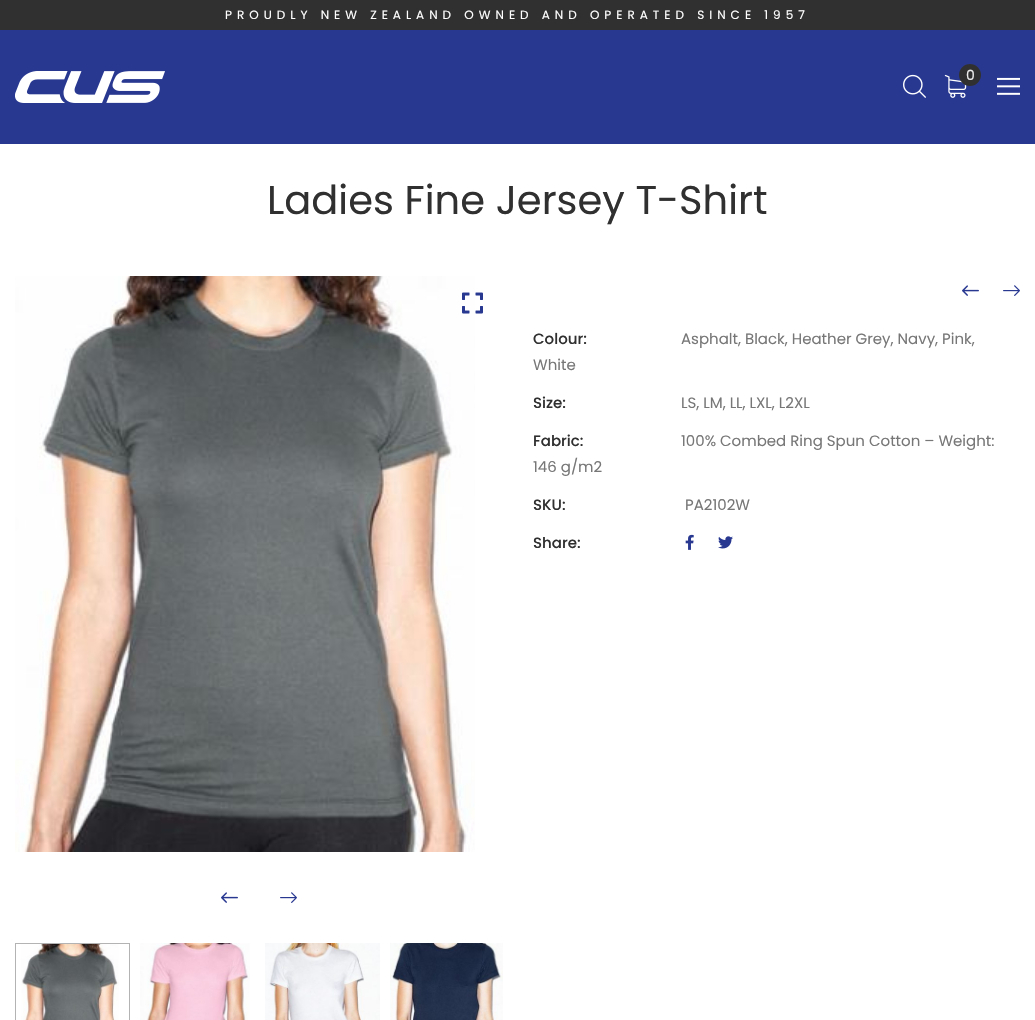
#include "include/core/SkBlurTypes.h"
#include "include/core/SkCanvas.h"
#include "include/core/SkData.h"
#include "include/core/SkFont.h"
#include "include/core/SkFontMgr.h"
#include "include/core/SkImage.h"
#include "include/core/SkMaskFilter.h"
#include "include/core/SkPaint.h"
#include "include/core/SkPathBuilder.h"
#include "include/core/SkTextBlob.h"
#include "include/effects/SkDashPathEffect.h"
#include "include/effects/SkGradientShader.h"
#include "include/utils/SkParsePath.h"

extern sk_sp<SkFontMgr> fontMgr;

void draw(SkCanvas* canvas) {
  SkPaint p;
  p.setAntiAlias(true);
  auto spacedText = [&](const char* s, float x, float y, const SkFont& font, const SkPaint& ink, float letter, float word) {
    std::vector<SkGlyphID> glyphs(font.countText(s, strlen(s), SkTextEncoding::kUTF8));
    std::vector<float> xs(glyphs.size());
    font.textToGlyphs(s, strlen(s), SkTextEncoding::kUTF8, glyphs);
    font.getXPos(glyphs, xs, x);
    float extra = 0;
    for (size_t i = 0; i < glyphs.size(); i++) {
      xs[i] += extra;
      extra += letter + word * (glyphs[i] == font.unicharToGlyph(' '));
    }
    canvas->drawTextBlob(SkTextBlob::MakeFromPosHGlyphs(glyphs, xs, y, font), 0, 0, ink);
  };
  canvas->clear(SK_ColorWHITE);
  p.setColor(SkColorSetRGB(48, 48, 48));
  canvas->drawRect(SkRect::MakeLTRB(0, 0, 1035, 30), p);
  p.setColor(SkColorSetRGB(40, 56, 145));
  canvas->drawRect(SkRect::MakeLTRB(0, 30, 1035, 144), p);
  canvas->drawImageRect(SkImages::DeferredFromEncodedData(SkData::MakeFromFileName("images/1.png")), SkRect::MakeLTRB(15, 71, 165, 103), SkSamplingOptions());
  canvas->drawImageRect(SkImages::DeferredFromEncodedData(SkData::MakeFromFileName("images/2.png")), SkRect::MakeLTRB(903, 74, 926, 98), SkSamplingOptions());
  canvas->drawImageRect(SkImages::DeferredFromEncodedData(SkData::MakeFromFileName("images/3.png")), SkRect::MakeLTRB(944, 74, 967, 98), SkSamplingOptions());
  p.setColor(SkColorSetRGB(48, 48, 48));
  canvas->drawCircle(970, 75, 11, p);
  canvas->drawImageRect(SkImages::DeferredFromEncodedData(SkData::MakeFromFileName("images/4.png")), SkRect::MakeLTRB(997, 77, 1020, 95), SkSamplingOptions());
  canvas->drawImageRect(SkImages::DeferredFromEncodedData(SkData::MakeFromFileName("images/5.png")), SkRect::MakeLTRB(15, 276, 475, 852), SkSamplingOptions());
  canvas->drawImageRect(SkImages::DeferredFromEncodedData(SkData::MakeFromFileName("images/6.png")), SkRect::MakeLTRB(221, 892, 238, 903), SkSamplingOptions());
  canvas->drawImageRect(SkImages::DeferredFromEncodedData(SkData::MakeFromFileName("images/7.png")), SkRect::MakeLTRB(280, 892, 297, 903), SkSamplingOptions());
  canvas->drawImageRect(SkImages::DeferredFromEncodedData(SkData::MakeFromFileName("images/8.png")), SkRect::MakeLTRB(462, 292, 483, 314), SkSamplingOptions());
  p.setStyle(SkPaint::kStroke_Style);
  p.setStrokeWidth(1);
  p.setColor(SkColorSetRGB(179, 179, 179));
  canvas->drawRect(SkRect::MakeLTRB(15.5f, 943.5f, 129.5f, 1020.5f), p);
  canvas->drawImageRect(SkImages::DeferredFromEncodedData(SkData::MakeFromFileName("images/9.png")), SkRect::MakeLTRB(21, 944, 119, 1020), SkSamplingOptions());
  canvas->drawImageRect(SkImages::DeferredFromEncodedData(SkData::MakeFromFileName("images/10.png")), SkRect::MakeLTRB(140, 943, 250, 1020), SkSamplingOptions());
  canvas->drawImageRect(SkImages::DeferredFromEncodedData(SkData::MakeFromFileName("images/11.png")), SkRect::MakeLTRB(265, 943, 380, 1020), SkSamplingOptions());
  canvas->drawImageRect(SkImages::DeferredFromEncodedData(SkData::MakeFromFileName("images/12.png")), SkRect::MakeLTRB(390, 943, 503, 1020), SkSamplingOptions());
  canvas->drawImageRect(SkImages::DeferredFromEncodedData(SkData::MakeFromFileName("images/6.png")), SkRect::MakeLTRB(962, 285, 979, 296), SkSamplingOptions());
  canvas->drawImageRect(SkImages::DeferredFromEncodedData(SkData::MakeFromFileName("images/7.png")), SkRect::MakeLTRB(1003, 285, 1020, 296), SkSamplingOptions());
  canvas->drawImageRect(SkImages::DeferredFromEncodedData(SkData::MakeFromFileName("images/13.png")), SkRect::MakeLTRB(685, 534, 694, 550), SkSamplingOptions());
  canvas->drawImageRect(SkImages::DeferredFromEncodedData(SkData::MakeFromFileName("images/14.png")), SkRect::MakeLTRB(718, 536, 733, 549), SkSamplingOptions());
  SkFont font1(fontMgr->matchFamilyStyle("Poppins", SkFontStyle::Normal()), 12);
  font1.setSubpixel(true);
  p.setStyle(SkPaint::kFill_Style);
  p.setColor(SK_ColorWHITE);
  spacedText("PROUDLY NEW ZEALAND OWNED AND OPERATED SINCE 1957", 225, 19, font1, p, 5, 0);
  SkFont font2(fontMgr->matchFamilyStyle("Poppins", SkFontStyle::Normal()), 14);
  font2.setSubpixel(true);
  p.setColor(SkColorSetRGB(235, 235, 235));
  canvas->drawString("0", 966, 80, font2, p);
  SkFont font3(fontMgr->matchFamilyStyle("Poppins", SkFontStyle::Normal()), 40);
  font3.setSubpixel(true);
  p.setColor(SkColorSetRGB(48, 48, 48));
  canvas->drawString("Ladies Fine Jersey T-Shirt", 267, 214, font3, p);
  SkFont font4(fontMgr->matchFamilyStyle("Poppins", SkFontStyle(500, SkFontStyle::kNormal_Width, SkFontStyle::kUpright_Slant)), 15);
  font4.setSubpixel(true);
  canvas->drawString("Colour:", 533, 344, font4, p);
  SkFont font5(fontMgr->matchFamilyStyle("Poppins", SkFontStyle::Normal()), 15);
  font5.setSubpixel(true);
  p.setColor(SkColorSetRGB(119, 119, 119));
  canvas->drawString("Asphalt, Black, Heather Grey, Navy, Pink,", 681, 344, font5, p);
  canvas->drawString("White", 533, 370, font5, p);
  p.setColor(SkColorSetRGB(48, 48, 48));
  canvas->drawString("Size:", 533, 408, font4, p);
  p.setColor(SkColorSetRGB(119, 119, 119));
  canvas->drawString("LS, LM, LL, LXL, L2XL", 681, 408, font5, p);
  p.setColor(SkColorSetRGB(48, 48, 48));
  canvas->drawString("Fabric:", 533, 446, font4, p);
  p.setColor(SkColorSetRGB(119, 119, 119));
  canvas->drawString("100% Combed Ring Spun Cotton – Weight:", 681, 446, font5, p);
  canvas->drawString("146 g/m2", 533, 472, font5, p);
  p.setColor(SkColorSetRGB(48, 48, 48));
  canvas->drawString("SKU:", 533, 510, font4, p);
  p.setColor(SkColorSetRGB(119, 119, 119));
  canvas->drawString("PA2102W", 685, 510, font5, p);
  p.setColor(SkColorSetRGB(48, 48, 48));
  canvas->drawString("Share:", 533, 548, font4, p);
}
